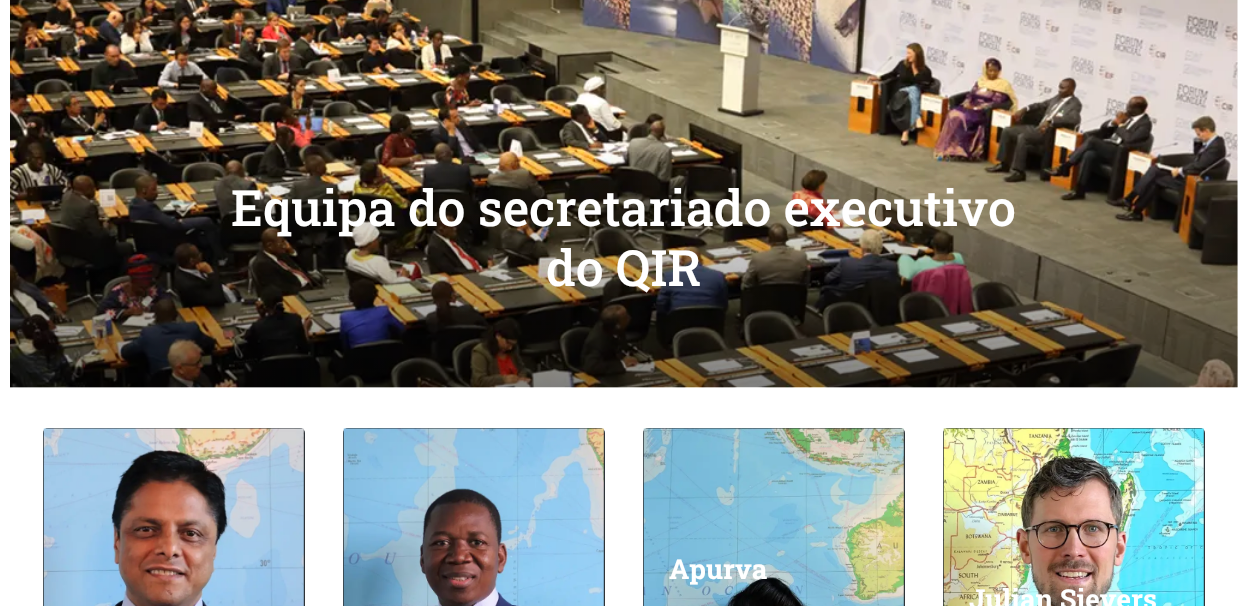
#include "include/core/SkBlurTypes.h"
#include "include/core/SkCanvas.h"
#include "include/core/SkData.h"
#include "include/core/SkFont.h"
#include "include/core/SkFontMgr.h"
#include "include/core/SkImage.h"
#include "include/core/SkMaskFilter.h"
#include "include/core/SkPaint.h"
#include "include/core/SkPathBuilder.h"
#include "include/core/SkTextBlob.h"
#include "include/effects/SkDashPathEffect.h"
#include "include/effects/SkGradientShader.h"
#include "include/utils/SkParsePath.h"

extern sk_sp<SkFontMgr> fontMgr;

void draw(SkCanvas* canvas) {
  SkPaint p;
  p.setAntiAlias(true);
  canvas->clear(SK_ColorWHITE);
  canvas->drawImageRect(SkImages::DeferredFromEncodedData(SkData::MakeFromFileName("images/1.png")), SkRect::MakeLTRB(10, 0, 1238, 388), SkSamplingOptions());
  p.setColor(SkColorSetRGB(52, 58, 64));
  canvas->drawRoundRect(SkRect::MakeLTRB(43, 428, 305, 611), 5, 5, p);
  p.setStyle(SkPaint::kStroke_Style);
  p.setStrokeWidth(1);
  p.setColor(SkColorSetARGB(31, 0, 0, 0));
  canvas->drawRoundRect(SkRect::MakeLTRB(43.5f, 428.5f, 304.5f, 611.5f), 4.5f, 4.5f, p);
  canvas->drawImageRect(SkImages::DeferredFromEncodedData(SkData::MakeFromFileName("images/2.png")), SkRect::MakeLTRB(43, 428, 304, 606), SkSamplingOptions());
  p.setStyle(SkPaint::kFill_Style);
  p.setColor(SkColorSetRGB(52, 58, 64));
  canvas->drawRoundRect(SkRect::MakeLTRB(343, 428, 605, 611), 5, 5, p);
  p.setStyle(SkPaint::kStroke_Style);
  p.setColor(SkColorSetARGB(31, 0, 0, 0));
  canvas->drawRoundRect(SkRect::MakeLTRB(343.5f, 428.5f, 604.5f, 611.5f), 4.5f, 4.5f, p);
  canvas->drawImageRect(SkImages::DeferredFromEncodedData(SkData::MakeFromFileName("images/3.png")), SkRect::MakeLTRB(343, 428, 604, 606), SkSamplingOptions());
  p.setStyle(SkPaint::kFill_Style);
  p.setColor(SkColorSetRGB(52, 58, 64));
  canvas->drawRoundRect(SkRect::MakeLTRB(643, 428, 905, 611), 5, 5, p);
  p.setStyle(SkPaint::kStroke_Style);
  p.setColor(SkColorSetARGB(31, 0, 0, 0));
  canvas->drawRoundRect(SkRect::MakeLTRB(643.5f, 428.5f, 904.5f, 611.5f), 4.5f, 4.5f, p);
  canvas->drawImageRect(SkImages::DeferredFromEncodedData(SkData::MakeFromFileName("images/4.png")), SkRect::MakeLTRB(643, 428, 904, 606), SkSamplingOptions());
  p.setStyle(SkPaint::kFill_Style);
  p.setColor(SkColorSetRGB(52, 58, 64));
  canvas->drawRoundRect(SkRect::MakeLTRB(943, 428, 1205, 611), 5, 5, p);
  p.setStyle(SkPaint::kStroke_Style);
  p.setColor(SkColorSetARGB(31, 0, 0, 0));
  canvas->drawRoundRect(SkRect::MakeLTRB(943.5f, 428.5f, 1204.5f, 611.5f), 4.5f, 4.5f, p);
  canvas->drawImageRect(SkImages::DeferredFromEncodedData(SkData::MakeFromFileName("images/5.png")), SkRect::MakeLTRB(943, 428, 1204, 606), SkSamplingOptions());
  SkFont font1(fontMgr->matchFamilyStyle("Roboto Slab", SkFontStyle(500, SkFontStyle::kNormal_Width, SkFontStyle::kUpright_Slant)), 50);
  font1.setSubpixel(true);
  p.setStyle(SkPaint::kFill_Style);
  p.setColor(SK_ColorWHITE);
  canvas->drawString("Equipa do secretariado executivo", 231, 226, font1, p);
  canvas->drawString("do QIR", 546, 286, font1, p);
  SkFont font2(fontMgr->matchFamilyStyle("Roboto Slab", SkFontStyle::Bold()), 27.5f);
  font2.setSubpixel(true);
  canvas->drawString("Apurva", 669, 579, font2, p);
  canvas->drawString("Julian Sievers", 969, 609, font2, p);
}
